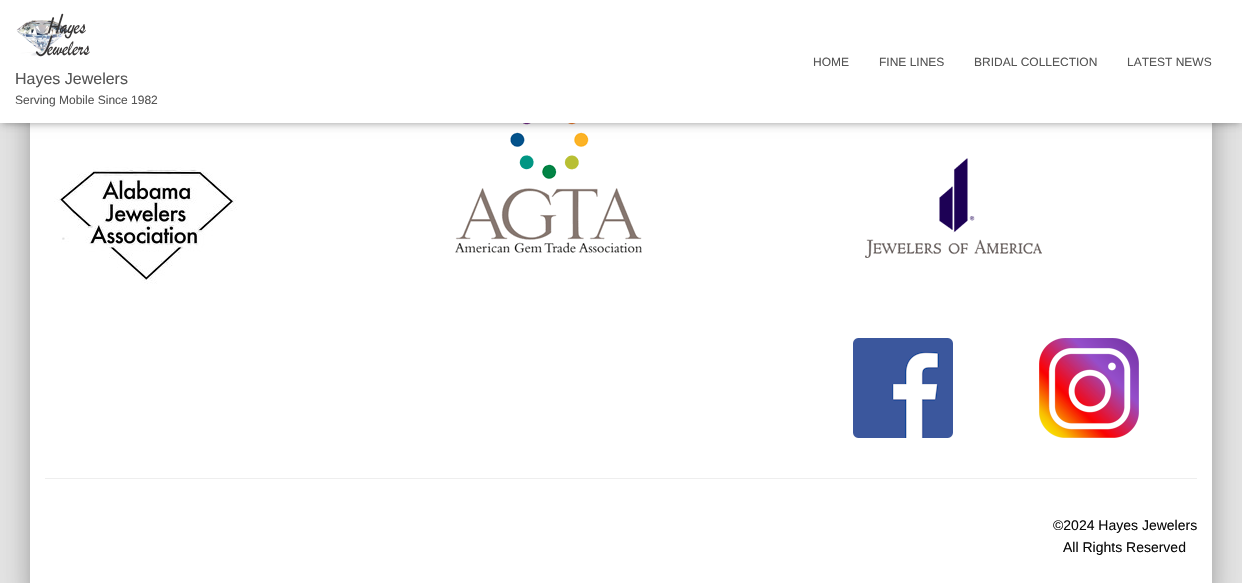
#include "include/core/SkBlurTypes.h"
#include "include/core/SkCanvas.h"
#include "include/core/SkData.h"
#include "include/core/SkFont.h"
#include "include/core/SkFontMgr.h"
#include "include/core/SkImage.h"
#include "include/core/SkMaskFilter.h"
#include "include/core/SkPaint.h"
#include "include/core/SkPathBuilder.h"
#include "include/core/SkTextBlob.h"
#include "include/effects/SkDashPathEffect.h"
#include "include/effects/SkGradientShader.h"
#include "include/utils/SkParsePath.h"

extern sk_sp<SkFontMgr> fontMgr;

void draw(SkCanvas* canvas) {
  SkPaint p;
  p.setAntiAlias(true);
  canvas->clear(SkColorSetRGB(229, 229, 229));
  p.setColor(SkColorSetARGB(51, 0, 0, 0));
  p.setMaskFilter(SkMaskFilter::MakeBlur(kNormal_SkBlurStyle, 5));
  canvas->drawRoundRect(SkRect::MakeLTRB(35, -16, 1207, 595), 1, 1, p);
  p.setMaskFilter(nullptr);
  p.setColor(SkColorSetARGB(31, 0, 0, 0));
  p.setMaskFilter(SkMaskFilter::MakeBlur(kNormal_SkBlurStyle, 15));
  canvas->drawRoundRect(SkRect::MakeLTRB(25, -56, 1217, 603), 11, 11, p);
  p.setMaskFilter(nullptr);
  p.setColor(SkColorSetARGB(36, 0, 0, 0));
  p.setMaskFilter(SkMaskFilter::MakeBlur(kNormal_SkBlurStyle, 12));
  canvas->drawRoundRect(SkRect::MakeLTRB(28, -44, 1214, 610), 8, 8, p);
  p.setMaskFilter(nullptr);
  p.setColor(SK_ColorWHITE);
  canvas->drawRect(SkRect::MakeLTRB(30, 123, 1212, 583), p);
  canvas->drawImageRect(SkImages::DeferredFromEncodedData(SkData::MakeFromFileName("images/3.png")), SkRect::MakeLTRB(455, 123, 642, 253), SkSamplingOptions());
  p.setColor(SkColorSetARGB(26, 0, 0, 0));
  p.setMaskFilter(SkMaskFilter::MakeBlur(kNormal_SkBlurStyle, 2.5f));
  canvas->drawRect(SkRect::MakeLTRB(2, 6, 1240, 125), p);
  p.setMaskFilter(nullptr);
  p.setColor(SkColorSetARGB(31, 0, 0, 0));
  p.setMaskFilter(SkMaskFilter::MakeBlur(kNormal_SkBlurStyle, 5));
  canvas->drawRect(SkRect::MakeLTRB(0, 1, 1242, 124), p);
  p.setMaskFilter(nullptr);
  p.setColor(SkColorSetARGB(107, 0, 0, 0));
  p.setMaskFilter(SkMaskFilter::MakeBlur(kNormal_SkBlurStyle, 5));
  canvas->drawRect(SkRect::MakeLTRB(6, 7, 1236, 118), p);
  p.setMaskFilter(nullptr);
  p.setColor(SK_ColorWHITE);
  canvas->drawRect(SkRect::MakeLTRB(0, 0, 1242, 123), p);
  canvas->drawImageRect(SkImages::DeferredFromEncodedData(SkData::MakeFromFileName("images/1.png")), SkRect::MakeLTRB(16, 13, 90, 57), SkSamplingOptions());
  canvas->drawImageRect(SkImages::DeferredFromEncodedData(SkData::MakeFromFileName("images/2.png")), SkRect::MakeLTRB(54, 167, 237, 284), SkSamplingOptions());
  canvas->drawImageRect(SkImages::DeferredFromEncodedData(SkData::MakeFromFileName("images/4.png")), SkRect::MakeLTRB(865, 158, 1042, 258), SkSamplingOptions());
  canvas->drawImageRect(SkImages::DeferredFromEncodedData(SkData::MakeFromFileName("images/5.png")), SkRect::MakeLTRB(853, 338, 953, 438), SkSamplingOptions());
  canvas->drawImageRect(SkImages::DeferredFromEncodedData(SkData::MakeFromFileName("images/6.png")), SkRect::MakeLTRB(1039, 338, 1139, 438), SkSamplingOptions());
  p.setColor(SkColorSetRGB(238, 238, 238));
  canvas->drawRect(SkRect::MakeLTRB(45, 478, 1197, 479), p);
  SkFont font1(fontMgr->matchFamilyStyle("Liberation Sans", SkFontStyle::Normal()), 12);
  font1.setSubpixel(true);
  p.setColor(SkColorSetRGB(85, 85, 85));
  canvas->drawString("HOME", 813, 66, font1, p);
  canvas->drawString("FINE LINES", 879, 66, font1, p);
  canvas->drawString("BRIDAL COLLECTION", 974, 66, font1, p);
  canvas->drawString("LATEST NEWS", 1127, 66, font1, p);
  SkFont font2(fontMgr->matchFamilyStyle("Liberation Sans", SkFontStyle::Normal()), 16);
  font2.setSubpixel(true);
  canvas->drawString("Hayes Jewelers", 15, 84, font2, p);
  canvas->drawString("Serving Mobile Since 1982", 15, 104, font1, p);
  SkFont font3(fontMgr->matchFamilyStyle("Liberation Sans", SkFontStyle::Normal()), 14);
  font3.setSubpixel(true);
  p.setColor(SkColorSetRGB(10, 10, 10));
  canvas->drawString("©2024 Hayes Jewelers", 1053, 530, font3, p);
  canvas->drawString("All Rights Reserved", 1063, 552, font3, p);
}
